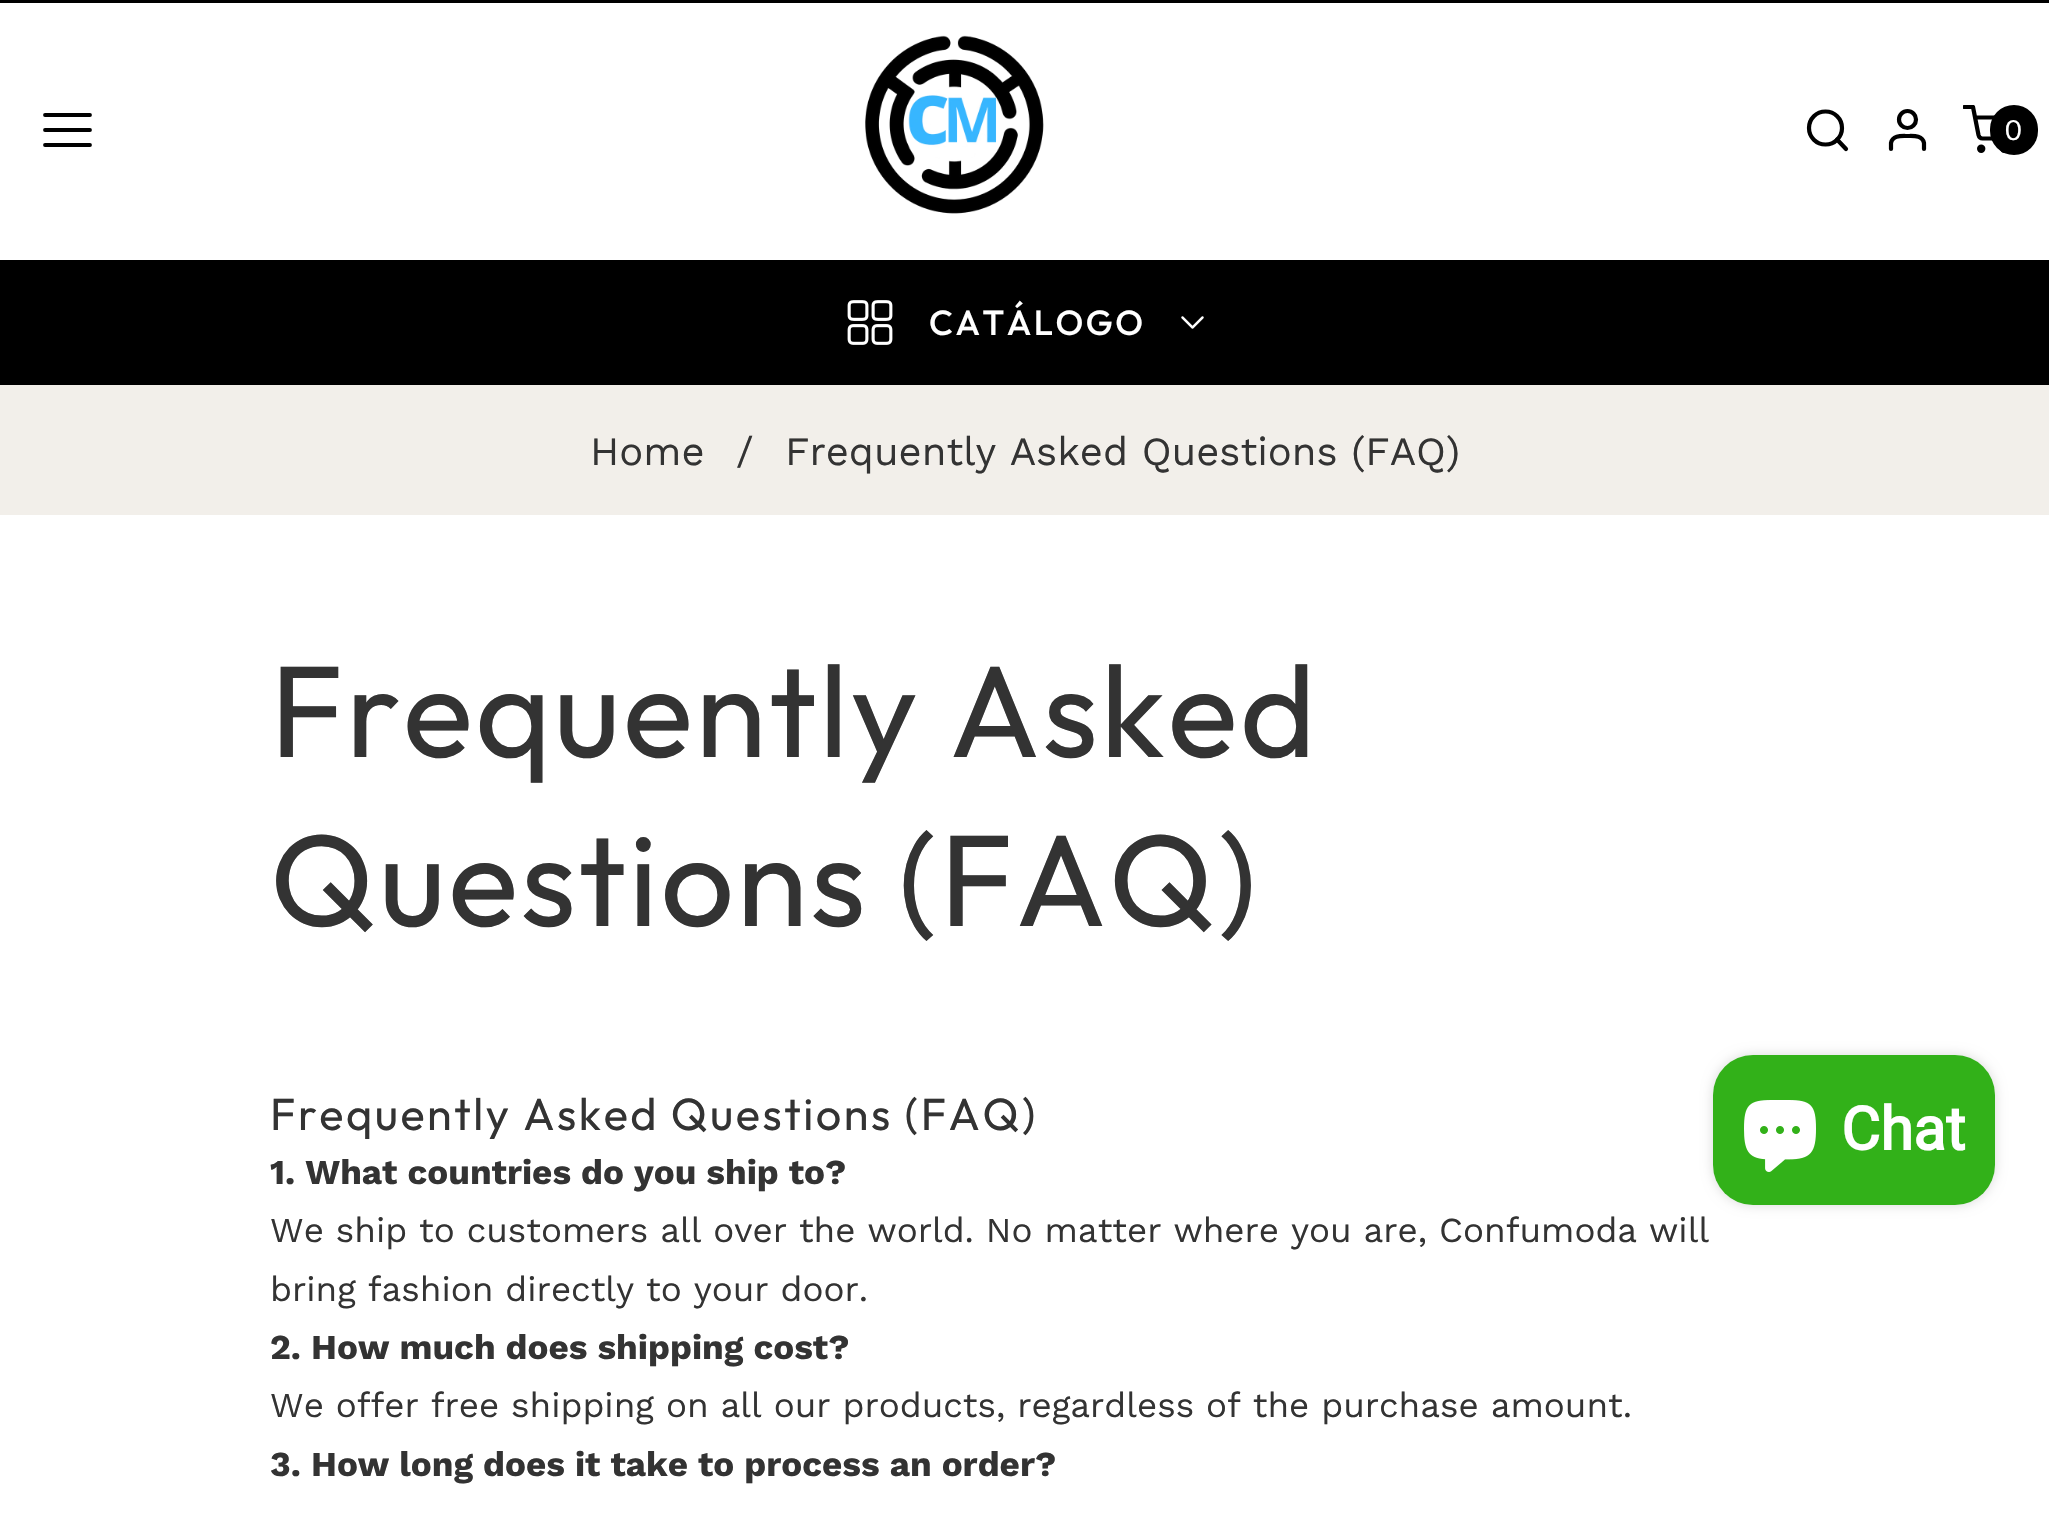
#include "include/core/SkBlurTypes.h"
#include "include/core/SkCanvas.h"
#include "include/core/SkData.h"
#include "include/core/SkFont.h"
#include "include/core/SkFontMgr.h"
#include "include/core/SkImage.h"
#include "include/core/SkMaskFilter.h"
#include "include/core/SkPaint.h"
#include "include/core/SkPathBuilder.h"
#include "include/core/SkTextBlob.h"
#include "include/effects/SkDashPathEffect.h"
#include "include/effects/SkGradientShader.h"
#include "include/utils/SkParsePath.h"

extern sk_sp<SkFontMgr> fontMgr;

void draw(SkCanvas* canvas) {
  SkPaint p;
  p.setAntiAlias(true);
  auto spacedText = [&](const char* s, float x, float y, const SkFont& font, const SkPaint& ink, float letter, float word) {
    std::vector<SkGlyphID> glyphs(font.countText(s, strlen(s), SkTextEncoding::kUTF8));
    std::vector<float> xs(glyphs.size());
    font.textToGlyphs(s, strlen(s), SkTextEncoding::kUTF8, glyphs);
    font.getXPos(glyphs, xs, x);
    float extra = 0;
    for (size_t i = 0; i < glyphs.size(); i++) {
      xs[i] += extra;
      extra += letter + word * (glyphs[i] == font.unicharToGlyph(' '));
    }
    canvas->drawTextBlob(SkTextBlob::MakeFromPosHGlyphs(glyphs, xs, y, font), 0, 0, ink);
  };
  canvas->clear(SK_ColorWHITE);
  p.setColor(SK_ColorBLACK);
  canvas->drawRect(SkRect::MakeLTRB(0, 0, 2049, 3), p);
  p.setStyle(SkPaint::kStroke_Style);
  p.setStrokeWidth(3.8f);
  p.setStrokeCap(SkPaint::kRound_Cap);
  p.setStrokeJoin(SkPaint::kRound_Join);
  canvas->drawPath(SkPathBuilder().moveTo(45, 130).lineTo(90, 130).moveTo(45, 115).lineTo(90, 115).moveTo(45, 145).lineTo(90, 145).detach(), p);
  canvas->drawImageRect(SkImages::DeferredFromEncodedData(SkData::MakeFromFileName("images/1.png")), SkRect::MakeLTRB(865, 35, 1044, 214), SkSamplingOptions());
  p.setStrokeWidth(4.2f);
  p.setStrokeCap(SkPaint::kButt_Cap);
  p.setStrokeJoin(SkPaint::kMiter_Join);
  canvas->drawCircle(1825.5f, 128, 16.5f, p);
  p.setStrokeCap(SkPaint::kRound_Cap);
  p.setStrokeJoin(SkPaint::kRound_Join);
  canvas->drawPath(SkPathBuilder().moveTo(1846, 149).lineTo(1837, 139.5f).detach(), p);
  canvas->drawPath(SkPathBuilder().moveTo(1924, 149).lineTo(1924, 143).cubicTo(1922.5f, 135, 1913.5f, 136, 1907.5f, 136).cubicTo(1901.5f, 136, 1892.5f, 135, 1891, 143).lineTo(1891, 149).detach(), p);
  p.setStrokeCap(SkPaint::kButt_Cap);
  p.setStrokeJoin(SkPaint::kMiter_Join);
  canvas->drawCircle(1907.5f, 119.5f, 8.5f, p);
  canvas->drawCircle(1981.2f, 148.8f, 2.1f, p);
  canvas->drawCircle(2004.2f, 148.8f, 2.1f, p);
  canvas->save();
  canvas->clipRect(SkRect::MakeLTRB(1963, 105, 2013, 155));
  p.setStrokeCap(SkPaint::kRound_Cap);
  p.setStrokeJoin(SkPaint::kRound_Join);
  canvas->drawPath(SkPathBuilder().moveTo(1964.5f, 107).lineTo(1973, 107).lineTo(1978.5f, 135).cubicTo(1979, 137, 1980.5f, 138.5f, 1982.5f, 138.5f).lineTo(2003, 138.5f).cubicTo(2005, 138.5f, 2006.5f, 137, 2007, 135).lineTo(2010.5f, 117.5f).lineTo(1975, 117.5f).detach(), p);
  canvas->restore();
  p.setStyle(SkPaint::kFill_Style);
  canvas->drawRoundRect(SkRect::MakeLTRB(1990, 105, 2038, 155), 24, 24, p);
  canvas->drawRect(SkRect::MakeLTRB(0, 260, 2049, 385), p);
  canvas->drawImageRect(SkImages::DeferredFromEncodedData(SkData::MakeFromFileName("images/2.png")), SkRect::MakeLTRB(847, 300, 893, 345), SkSamplingOptions());
  canvas->drawImageRect(SkImages::DeferredFromEncodedData(SkData::MakeFromFileName("images/3.png")), SkRect::MakeLTRB(1181, 316, 1204, 329), SkSamplingOptions());
  p.setColor(SkColorSetRGB(242, 239, 234));
  canvas->drawRect(SkRect::MakeLTRB(0, 385, 2049, 515), p);
  p.setColor(SkColorSetARGB(38, 0, 0, 0));
  p.setMaskFilter(SkMaskFilter::MakeBlur(kNormal_SkBlurStyle, 6));
  canvas->drawRoundRect(SkRect::MakeLTRB(1713, 1055, 1995, 1205), 40, 40, p);
  p.setMaskFilter(nullptr);
  p.setColor(SkColorSetRGB(50, 177, 25));
  canvas->drawRoundRect(SkRect::MakeLTRB(1713, 1055, 1995, 1205), 40, 40, p);
  canvas->drawImageRect(SkImages::DeferredFromEncodedData(SkData::MakeFromFileName("images/4.png")), SkRect::MakeLTRB(1744, 1100, 1816, 1172), SkSamplingOptions());
  SkFont font1(fontMgr->matchFamilyStyle("Work Sans", SkFontStyle::Normal()), 30);
  font1.setSubpixel(true);
  p.setColor(SK_ColorWHITE);
  canvas->drawString("0", 2004, 140, font1, p);
  SkFont font2(fontMgr->matchFamilyStyle("Outfit", SkFontStyle(500, SkFontStyle::kNormal_Width, SkFontStyle::kUpright_Slant)), 35);
  font2.setSubpixel(true);
  spacedText("CATÁLOGO", 929, 335, font2, p, 2.5f, 0);
  SkFont font3(fontMgr->matchFamilyStyle("Work Sans", SkFontStyle::Normal()), 40);
  font3.setSubpixel(true);
  p.setColor(SkColorSetRGB(51, 51, 51));
  canvas->drawString("Home", 590, 465, font3, p);
  canvas->drawString("/", 736, 465, font3, p);
  canvas->drawString("Frequently Asked Questions (FAQ)", 785, 465, font3, p);
  SkFont font4(fontMgr->matchFamilyStyle("Outfit", SkFontStyle::Normal()), 130);
  font4.setSubpixel(true);
  spacedText("Frequently Asked", 270, 757, font4, p, 2.5f, 0);
  spacedText("Questions (FAQ)", 270, 926, font4, p, 2.5f, 0);
  SkFont font5(fontMgr->matchFamilyStyle("Outfit", SkFontStyle::Normal()), 45);
  font5.setSubpixel(true);
  spacedText("Frequently Asked Questions (FAQ)", 270, 1130, font5, p, 2.5f, 0);
  SkFont font6(fontMgr->matchFamilyStyle("Work Sans", SkFontStyle::Bold()), 35);
  font6.setSubpixel(true);
  canvas->drawString("1. What countries do you ship to?", 270, 1184, font6, p);
  SkFont font7(fontMgr->matchFamilyStyle("Work Sans", SkFontStyle::Normal()), 35);
  font7.setSubpixel(true);
  canvas->drawString("We ship to customers all over the world. No matter where you are, Confumoda will", 270, 1242, font7, p);
  canvas->drawString("bring fashion directly to your door.", 270, 1301, font7, p);
  canvas->drawString("2. How much does shipping cost?", 270, 1359, font6, p);
  canvas->drawString("We offer free shipping on all our products, regardless of the purchase amount.", 270, 1417, font7, p);
  canvas->drawString("3. How long does it take to process an order?", 270, 1476, font6, p);
  SkFont font8(fontMgr->matchFamilyStyle("Roboto", SkFontStyle::Bold()), 60);
  font8.setSubpixel(true);
  p.setColor(SK_ColorWHITE);
  canvas->drawString("Chat", 1841, 1150, font8, p);
}
